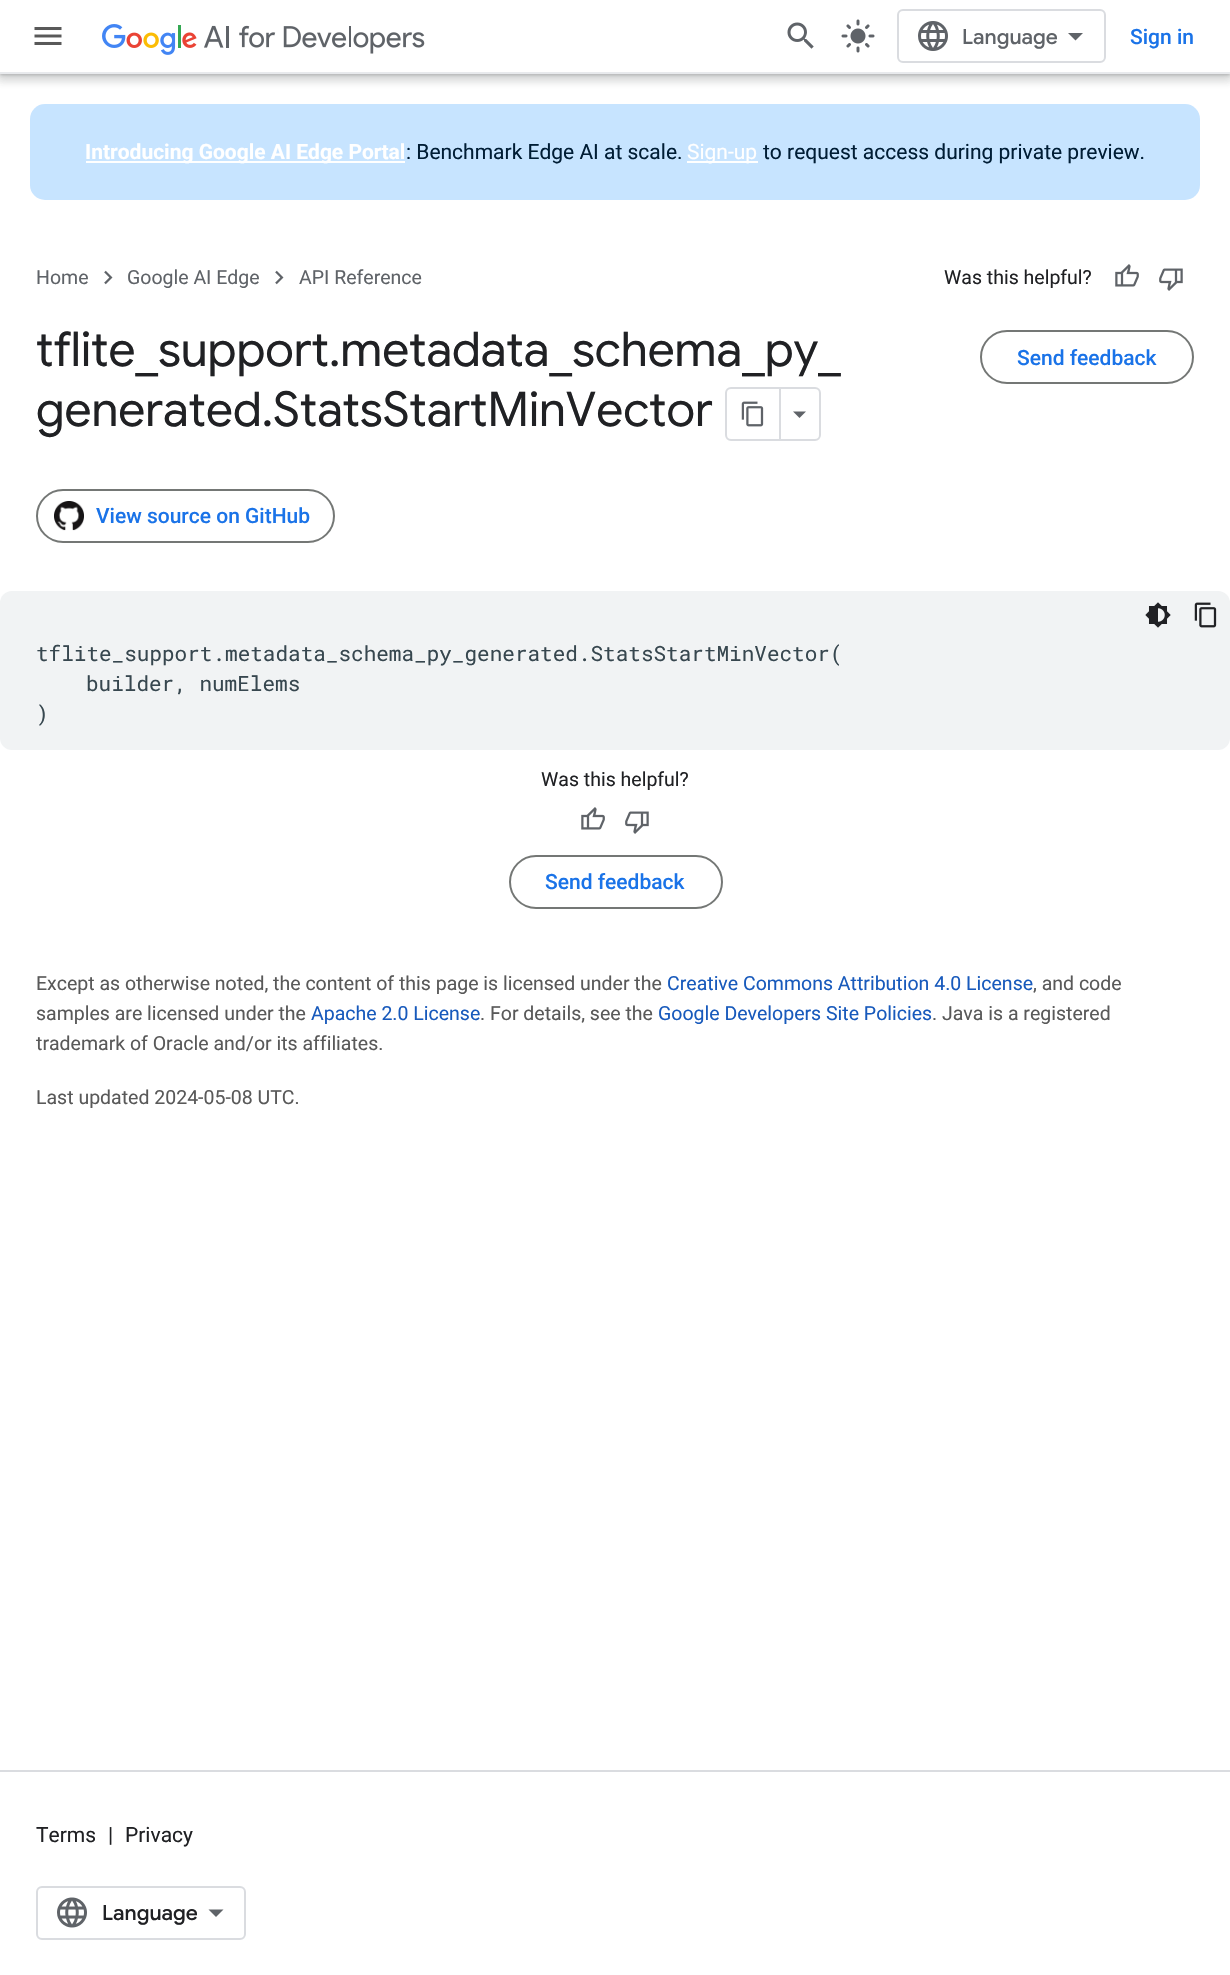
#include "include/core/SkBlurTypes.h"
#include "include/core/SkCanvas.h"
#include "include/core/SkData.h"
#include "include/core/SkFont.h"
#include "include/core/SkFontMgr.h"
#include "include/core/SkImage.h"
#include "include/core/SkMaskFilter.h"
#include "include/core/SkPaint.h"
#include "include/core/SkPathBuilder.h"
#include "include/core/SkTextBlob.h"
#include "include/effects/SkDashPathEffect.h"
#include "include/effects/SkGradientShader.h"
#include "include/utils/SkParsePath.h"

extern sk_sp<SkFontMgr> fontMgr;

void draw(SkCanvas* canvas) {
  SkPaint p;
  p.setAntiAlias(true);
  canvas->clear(SK_ColorWHITE);
  p.setColor(SkColorSetARGB(38, 60, 64, 67));
  p.setMaskFilter(SkMaskFilter::MakeBlur(kNormal_SkBlurStyle, 4.5f));
  canvas->drawRect(SkRect::MakeLTRB(-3, 0, 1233, 80), p);
  p.setMaskFilter(nullptr);
  p.setColor(SkColorSetARGB(77, 60, 64, 67));
  p.setMaskFilter(SkMaskFilter::MakeBlur(kNormal_SkBlurStyle, 1.5f));
  canvas->drawRect(SkRect::MakeLTRB(0, 2, 1230, 75), p);
  p.setMaskFilter(nullptr);
  p.setColor(SkColorSetARGB(38, 60, 64, 67));
  p.setMaskFilter(SkMaskFilter::MakeBlur(kNormal_SkBlurStyle, 4.5f));
  canvas->drawRect(SkRect::MakeLTRB(-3, 74, 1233, 80), p);
  p.setMaskFilter(nullptr);
  p.setColor(SK_ColorWHITE);
  canvas->drawRect(SkRect::MakeLTRB(0, 0, 1230, 72), p);
  p.setColor(SkColorSetRGB(232, 234, 237));
  canvas->drawRect(SkRect::MakeLTRB(0, 72, 1230, 74), p);
  canvas->drawImageRect(SkImages::DeferredFromEncodedData(SkData::MakeFromFileName("images/1.png")), SkRect::MakeLTRB(34, 27, 62, 45), SkSamplingOptions());
  canvas->drawImageRect(SkImages::DeferredFromEncodedData(SkData::MakeFromFileName("images/2.png")), SkRect::MakeLTRB(102, 24, 425, 55), SkSamplingOptions());
  canvas->drawImageRect(SkImages::DeferredFromEncodedData(SkData::MakeFromFileName("images/3.png")), SkRect::MakeLTRB(787, 22, 814, 49), SkSamplingOptions());
  canvas->drawImageRect(SkImages::DeferredFromEncodedData(SkData::MakeFromFileName("images/4.png")), SkRect::MakeLTRB(841, 19, 875, 53), SkSamplingOptions());
  p.setStyle(SkPaint::kStroke_Style);
  p.setStrokeWidth(2);
  p.setColor(SkColorSetRGB(218, 220, 224));
  canvas->drawRoundRect(SkRect::MakeLTRB(898, 10, 1105, 62), 5, 5, p);
  canvas->drawImageRect(SkImages::DeferredFromEncodedData(SkData::MakeFromFileName("images/5.png")), SkRect::MakeLTRB(918, 21, 948, 51), SkSamplingOptions());
  p.setStyle(SkPaint::kFill_Style);
  p.setColor(SkColorSetRGB(95, 99, 104));
  canvas->drawPath(SkPathBuilder().moveTo(1075.5f, 40.5f).lineTo(1068, 33).lineTo(1083, 33).close().detach(), p);
  p.setColor(SkColorSetRGB(199, 228, 255));
  canvas->drawRoundRect(SkRect::MakeLTRB(30, 104, 1200, 200), 15, 15, p);
  p.setColor(SK_ColorWHITE);
  canvas->drawRect(SkRect::MakeLTRB(86, 161, 405, 163), p);
  canvas->drawRect(SkRect::MakeLTRB(687, 161, 758, 163), p);
  canvas->drawImageRect(SkImages::DeferredFromEncodedData(SkData::MakeFromFileName("images/6.png")), SkRect::MakeLTRB(104, 270, 113, 285), SkSamplingOptions());
  canvas->drawImageRect(SkImages::DeferredFromEncodedData(SkData::MakeFromFileName("images/6.png")), SkRect::MakeLTRB(275, 270, 284, 285), SkSamplingOptions());
  canvas->drawImageRect(SkImages::DeferredFromEncodedData(SkData::MakeFromFileName("images/7.png")), SkRect::MakeLTRB(1115, 264, 1139, 287), SkSamplingOptions());
  canvas->drawImageRect(SkImages::DeferredFromEncodedData(SkData::MakeFromFileName("images/8.png")), SkRect::MakeLTRB(1159, 268, 1183, 291), SkSamplingOptions());
  p.setStyle(SkPaint::kStroke_Style);
  p.setColor(SkColorSetRGB(218, 220, 224));
  canvas->drawRoundRect(SkRect::MakeLTRB(726, 388, 820, 440), 5, 5, p);
  p.setStyle(SkPaint::kFill_Style);
  canvas->drawRect(SkRect::MakeLTRB(779, 389, 781, 440), p);
  canvas->drawImageRect(SkImages::DeferredFromEncodedData(SkData::MakeFromFileName("images/9.png")), SkRect::MakeLTRB(741, 401, 764, 427), SkSamplingOptions());
  p.setColor(SkColorSetRGB(95, 99, 104));
  canvas->drawPath(SkPathBuilder().moveTo(793, 411.5f).lineTo(806, 411.5f).lineTo(799.5f, 418).close().detach(), p);
  p.setStyle(SkPaint::kStroke_Style);
  p.setColor(SkColorSetRGB(116, 119, 117));
  canvas->drawRoundRect(SkRect::MakeLTRB(981, 331, 1193, 383), 26, 26, p);
  canvas->drawRoundRect(SkRect::MakeLTRB(37, 490, 334, 542), 26, 26, p);
  canvas->drawImageRect(SkImages::DeferredFromEncodedData(SkData::MakeFromFileName("images/10.png")), SkRect::MakeLTRB(54, 501, 84, 531), SkSamplingOptions());
  p.setStyle(SkPaint::kFill_Style);
  p.setColor(SkColorSetRGB(241, 243, 244));
  canvas->drawRoundRect(SkRect::MakeLTRB(0, 591, 1230, 750), 12, 12, p);
  canvas->drawImageRect(SkImages::DeferredFromEncodedData(SkData::MakeFromFileName("images/11.png")), SkRect::MakeLTRB(1145, 602, 1171, 628), SkSamplingOptions());
  canvas->drawImageRect(SkImages::DeferredFromEncodedData(SkData::MakeFromFileName("images/12.png")), SkRect::MakeLTRB(1194, 602, 1217, 628), SkSamplingOptions());
  canvas->drawImageRect(SkImages::DeferredFromEncodedData(SkData::MakeFromFileName("images/7.png")), SkRect::MakeLTRB(581, 807, 605, 830), SkSamplingOptions());
  canvas->drawImageRect(SkImages::DeferredFromEncodedData(SkData::MakeFromFileName("images/8.png")), SkRect::MakeLTRB(625, 811, 649, 834), SkSamplingOptions());
  p.setStyle(SkPaint::kStroke_Style);
  p.setColor(SkColorSetRGB(116, 119, 117));
  canvas->drawRoundRect(SkRect::MakeLTRB(510, 856, 722, 908), 26, 26, p);
  p.setStyle(SkPaint::kFill_Style);
  p.setColor(SkColorSetRGB(218, 220, 224));
  canvas->drawRect(SkRect::MakeLTRB(0, 1770, 1230, 1772), p);
  p.setStyle(SkPaint::kStroke_Style);
  canvas->drawRoundRect(SkRect::MakeLTRB(37, 1887, 245, 1939), 5, 5, p);
  canvas->drawImageRect(SkImages::DeferredFromEncodedData(SkData::MakeFromFileName("images/13.png")), SkRect::MakeLTRB(57, 1897, 87, 1928), SkSamplingOptions());
  p.setStyle(SkPaint::kFill_Style);
  p.setColor(SkColorSetRGB(95, 99, 104));
  canvas->drawPath(SkPathBuilder().moveTo(216, 1917).lineTo(208.5f, 1909.5f).lineTo(223.5f, 1909.5f).close().detach(), p);
  SkFont font1(fontMgr->matchFamilyStyle("Google Sans", SkFontStyle(500, SkFontStyle::kNormal_Width, SkFontStyle::kUpright_Slant)), 21);
  font1.setSubpixel(true);
  canvas->drawString("Language", 962, 44, font1, p);
  SkFont font2(fontMgr->matchFamilyStyle("Roboto", SkFontStyle(500, SkFontStyle::kNormal_Width, SkFontStyle::kUpright_Slant)), 21);
  font2.setSubpixel(true);
  p.setColor(SkColorSetRGB(26, 115, 232));
  canvas->drawString("Sign in", 1130, 44, font2, p);
  SkFont font3(fontMgr->matchFamilyStyle("Roboto", SkFontStyle::Bold()), 21);
  font3.setSubpixel(true);
  p.setColor(SK_ColorWHITE);
  canvas->drawString("Introducing Google AI Edge Portal", 85, 159, font3, p);
  SkFont font4(fontMgr->matchFamilyStyle("Roboto", SkFontStyle::Normal()), 21);
  font4.setSubpixel(true);
  p.setColor(SkColorSetRGB(0, 29, 53));
  canvas->drawString(": Benchmark Edge AI at scale.", 406, 159, font4, p);
  p.setColor(SK_ColorWHITE);
  canvas->drawString("Sign-up", 687, 159, font4, p);
  p.setColor(SkColorSetRGB(0, 29, 53));
  canvas->drawString("to request access during private preview.", 763, 159, font4, p);
  SkFont font5(fontMgr->matchFamilyStyle("Roboto", SkFontStyle::Normal()), 19.5f);
  font5.setSubpixel(true);
  p.setColor(SkColorSetRGB(95, 99, 104));
  canvas->drawString("Home", 36, 284, font5, p);
  canvas->drawString("Google AI Edge", 127, 284, font5, p);
  canvas->drawString("API Reference", 299, 284, font5, p);
  p.setColor(SkColorSetRGB(32, 33, 36));
  canvas->drawString("Was this helpful?", 944, 284, font5, p);
  SkFont font6(fontMgr->matchFamilyStyle("Google Sans", SkFontStyle::Normal()), 48);
  font6.setSubpixel(true);
  canvas->drawString("tflite_support.metadata_schema_py_", 36, 366, font6, p);
  canvas->drawString("generated.StatsStartMinVector", 36, 426, font6, p);
  p.setColor(SkColorSetRGB(26, 115, 232));
  canvas->drawString("Send feedback", 1017, 365, font2, p);
  canvas->drawString("View source on GitHub", 96, 523, font2, p);
  SkFont font7(fontMgr->matchFamilyStyle("Roboto Mono", SkFontStyle::Normal()), 21);
  font7.setSubpixel(true);
  p.setColor(SkColorSetRGB(55, 71, 79));
  canvas->drawString("tflite_support.metadata_schema_py_generated.StatsStartMinVector(", 36, 661, font7, p);
  canvas->drawString("builder, numElems", 86, 691, font7, p);
  canvas->drawString(")", 36, 721, font7, p);
  p.setColor(SkColorSetRGB(32, 33, 36));
  canvas->drawString("Was this helpful?", 541, 786, font5, p);
  p.setColor(SkColorSetRGB(26, 115, 232));
  canvas->drawString("Send feedback", 545, 889, font2, p);
  p.setColor(SkColorSetRGB(89, 89, 89));
  canvas->drawString("Except as otherwise noted, the content of this page is licensed under the", 36, 990, font5, p);
  p.setColor(SkColorSetRGB(24, 90, 188));
  canvas->drawString("Creative Commons Attribution 4.0 License", 667, 990, font5, p);
  p.setColor(SkColorSetRGB(89, 89, 89));
  canvas->drawString(", and code", 1033, 990, font5, p);
  canvas->drawString("samples are licensed under the", 36, 1020, font5, p);
  p.setColor(SkColorSetRGB(24, 90, 188));
  canvas->drawString("Apache 2.0 License", 311, 1020, font5, p);
  p.setColor(SkColorSetRGB(89, 89, 89));
  canvas->drawString(". For details, see the", 480, 1020, font5, p);
  p.setColor(SkColorSetRGB(24, 90, 188));
  canvas->drawString("Google Developers Site Policies", 658, 1020, font5, p);
  p.setColor(SkColorSetRGB(89, 89, 89));
  canvas->drawString(". Java is a registered", 932, 1020, font5, p);
  canvas->drawString("trademark of Oracle and/or its affiliates.", 36, 1050, font5, p);
  canvas->drawString("Last updated 2024-05-08 UTC.", 36, 1104, font5, p);
  p.setColor(SkColorSetRGB(32, 33, 36));
  canvas->drawString("Terms", 36, 1842, font4, p);
  canvas->drawString("|", 108, 1842, font4, p);
  canvas->drawString("Privacy", 125, 1842, font4, p);
  canvas->drawString("Language", 102, 1920, font1, p);
}
